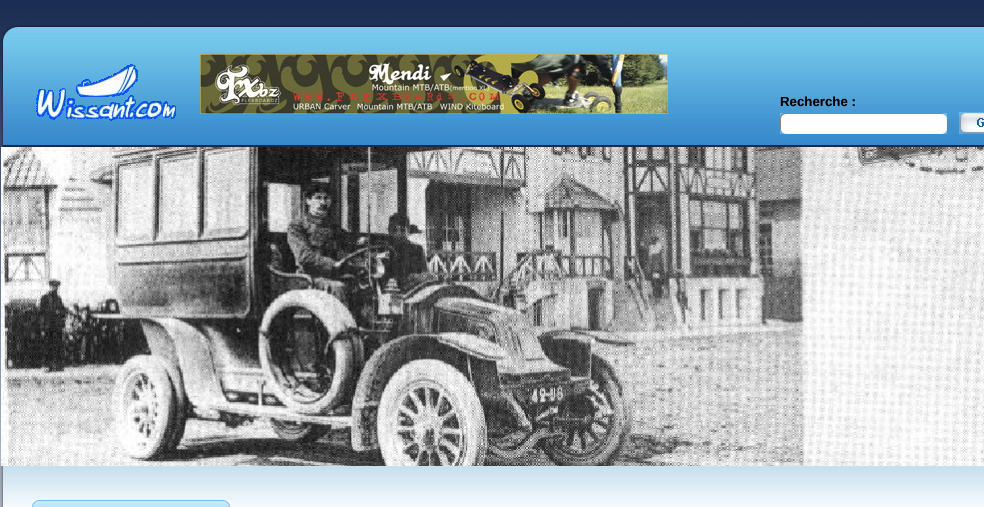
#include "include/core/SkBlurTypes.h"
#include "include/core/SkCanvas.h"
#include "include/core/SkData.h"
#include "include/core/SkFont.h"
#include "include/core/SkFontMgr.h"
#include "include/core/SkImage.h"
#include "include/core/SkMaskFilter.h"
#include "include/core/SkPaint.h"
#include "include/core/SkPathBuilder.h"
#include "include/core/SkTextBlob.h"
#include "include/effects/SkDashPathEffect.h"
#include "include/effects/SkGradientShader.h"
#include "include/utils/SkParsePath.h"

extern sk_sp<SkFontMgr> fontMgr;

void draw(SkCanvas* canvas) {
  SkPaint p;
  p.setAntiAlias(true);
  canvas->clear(SK_ColorWHITE);
  canvas->drawImageRect(SkImages::DeferredFromEncodedData(SkData::MakeFromFileName("images/1.png")), SkRect::MakeLTRB(0, 0, 984, 466), SkSamplingOptions());
  canvas->drawImageRect(SkImages::DeferredFromEncodedData(SkData::MakeFromFileName("images/2.png")), SkRect::MakeLTRB(17, 25, 984, 147), SkSamplingOptions());
  canvas->drawImageRect(SkImages::DeferredFromEncodedData(SkData::MakeFromFileName("images/3.png")), SkRect::MakeLTRB(0, 25, 17, 147), SkSamplingOptions());
  canvas->drawImageRect(SkImages::DeferredFromEncodedData(SkData::MakeFromFileName("images/4.png")), SkRect::MakeLTRB(36, 64, 176, 121), SkSamplingOptions());
  canvas->drawImageRect(SkImages::DeferredFromEncodedData(SkData::MakeFromFileName("images/5.png")), SkRect::MakeLTRB(200, 54, 668, 114), SkSamplingOptions());
  canvas->drawImageRect(SkImages::DeferredFromEncodedData(SkData::MakeFromFileName("images/6.png")), SkRect::MakeLTRB(780, 113, 947, 134), SkSamplingOptions());
  canvas->drawImageRect(SkImages::DeferredFromEncodedData(SkData::MakeFromFileName("images/7.png")), SkRect::MakeLTRB(959, 112, 984, 134), SkSamplingOptions());
  canvas->drawImageRect(SkImages::DeferredFromEncodedData(SkData::MakeFromFileName("images/8.png")), SkRect::MakeLTRB(1, 147, 984, 466), SkSamplingOptions());
  canvas->drawImageRect(SkImages::DeferredFromEncodedData(SkData::MakeFromFileName("images/9.png")), SkRect::MakeLTRB(3, 466, 984, 507), SkSamplingOptions());
  canvas->drawImageRect(SkImages::DeferredFromEncodedData(SkData::MakeFromFileName("images/10.png")), SkRect::MakeLTRB(0, 466, 3, 507), SkSamplingOptions());
  canvas->drawImageRect(SkImages::DeferredFromEncodedData(SkData::MakeFromFileName("images/11.png")), SkRect::MakeLTRB(32, 500, 230, 507), SkSamplingOptions());
  SkFont font1(fontMgr->matchFamilyStyle("Liberation Sans", SkFontStyle::Bold()), 13.25f);
  font1.setSubpixel(true);
  p.setColor(SK_ColorBLACK);
  canvas->drawString("Recherche :", 780, 106, font1, p);
}
